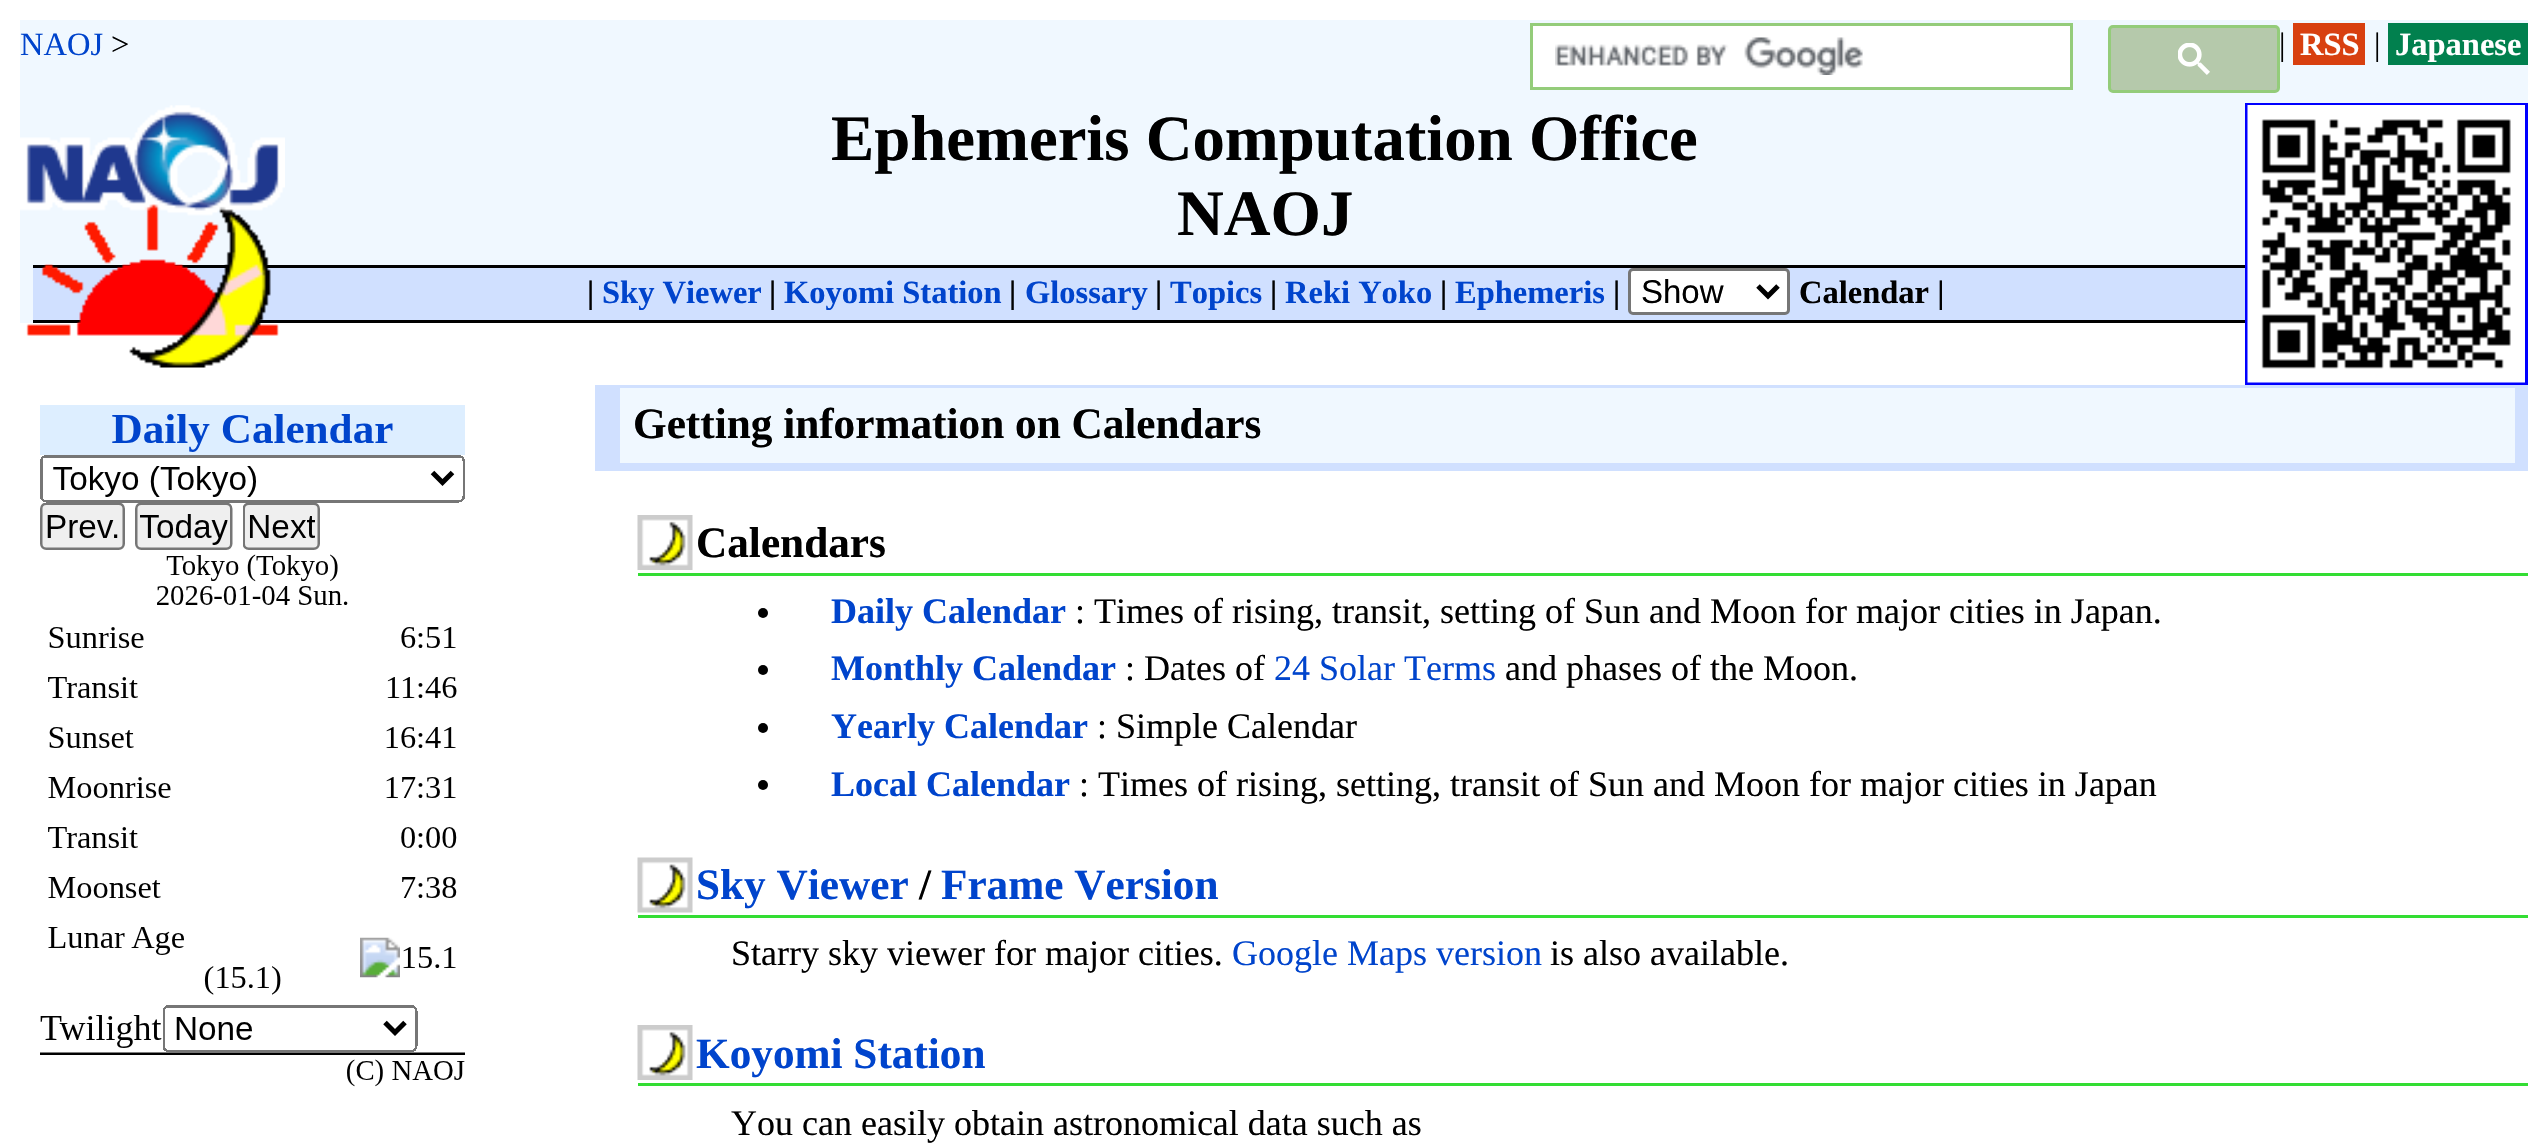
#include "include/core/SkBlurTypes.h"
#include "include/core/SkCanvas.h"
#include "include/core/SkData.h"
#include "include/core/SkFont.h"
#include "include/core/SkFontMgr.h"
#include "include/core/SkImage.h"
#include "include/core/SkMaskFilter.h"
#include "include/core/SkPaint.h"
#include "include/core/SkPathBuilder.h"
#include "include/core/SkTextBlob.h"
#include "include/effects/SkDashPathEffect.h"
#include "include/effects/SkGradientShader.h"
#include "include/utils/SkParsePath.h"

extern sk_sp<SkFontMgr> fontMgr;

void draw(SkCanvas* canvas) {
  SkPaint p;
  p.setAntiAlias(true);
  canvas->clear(SK_ColorWHITE);
  p.setColor(SkColorSetRGB(240, 248, 255));
  canvas->drawRect(SkRect::MakeLTRB(20, 20, 2528, 323), p);
  p.setColor(SK_ColorWHITE);
  canvas->drawRect(SkRect::MakeLTRB(1531.5f, 24.5f, 2071.5f, 88.5f), p);
  p.setStyle(SkPaint::kStroke_Style);
  p.setStrokeWidth(3);
  p.setColor(SkColorSetRGB(148, 204, 122));
  canvas->drawRect(SkRect::MakeLTRB(1531.5f, 24.5f, 2071.5f, 88.5f), p);
  canvas->drawImageRect(SkImages::DeferredFromEncodedData(SkData::MakeFromFileName("images/1.png")), SkRect::MakeLTRB(1555, 37, 1863, 75), SkSamplingOptions());
  p.setStyle(SkPaint::kFill_Style);
  p.setColor(SkColorSetRGB(181, 201, 171));
  canvas->drawRoundRect(SkRect::MakeLTRB(2109.5f, 26.5f, 2278.5f, 91.5f), 3.5f, 3.5f, p);
  p.setStyle(SkPaint::kStroke_Style);
  p.setColor(SkColorSetRGB(148, 204, 122));
  canvas->drawRoundRect(SkRect::MakeLTRB(2109.5f, 26.5f, 2278.5f, 91.5f), 3.5f, 3.5f, p);
  canvas->drawImageRect(SkImages::DeferredFromEncodedData(SkData::MakeFromFileName("images/2.png")), SkRect::MakeLTRB(2178, 43, 2210, 75), SkSamplingOptions());
  p.setStyle(SkPaint::kFill_Style);
  p.setColor(SkColorSetRGB(216, 64, 16));
  canvas->drawRect(SkRect::MakeLTRB(2293, 23, 2365, 65), p);
  p.setColor(SkColorSetRGB(1, 128, 78));
  canvas->drawRect(SkRect::MakeLTRB(2388, 23, 2528, 65), p);
  p.setColor(SkColorSetRGB(208, 224, 255));
  canvas->drawRect(SkRect::MakeLTRB(33, 268, 2245, 320), p);
  p.setColor(SK_ColorBLACK);
  canvas->drawRect(SkRect::MakeLTRB(33, 265, 2245, 268), p);
  canvas->drawRect(SkRect::MakeLTRB(33, 320, 2245, 323), p);
  canvas->drawImageRect(SkImages::DeferredFromEncodedData(SkData::MakeFromFileName("images/3.png")), SkRect::MakeLTRB(20, 105, 285, 368), SkSamplingOptions());
  p.setStyle(SkPaint::kStroke_Style);
  p.setColor(SkColorSetRGB(0, 0, 255));
  canvas->drawRect(SkRect::MakeLTRB(2246.5f, 104.5f, 2526.5f, 383.5f), p);
  canvas->drawImageRect(SkImages::DeferredFromEncodedData(SkData::MakeFromFileName("images/4.png")), SkRect::MakeLTRB(2247, 105, 2525, 383), SkSamplingOptions());
  p.setStyle(SkPaint::kFill_Style);
  p.setColor(SK_ColorWHITE);
  canvas->drawRoundRect(SkRect::MakeLTRB(1629.5f, 269.5f, 1788.5f, 313.5f), 3.5f, 3.5f, p);
  p.setStyle(SkPaint::kStroke_Style);
  p.setColor(SkColorSetRGB(118, 118, 118));
  canvas->drawRoundRect(SkRect::MakeLTRB(1629.5f, 269.5f, 1788.5f, 313.5f), 3.5f, 3.5f, p);
  p.setStrokeWidth(5);
  p.setColor(SK_ColorBLACK);
  canvas->drawPath(SkPathBuilder().moveTo(1758, 286).lineTo(1768, 296).lineTo(1778, 286).detach(), p);
  canvas->drawImageRect(SkImages::DeferredFromEncodedData(SkData::MakeFromFileName("images/5.png")), SkRect::MakeLTRB(40, 405, 465, 1087), SkSamplingOptions());
  p.setStyle(SkPaint::kFill_Style);
  p.setColor(SkColorSetRGB(240, 248, 255));
  canvas->drawRect(SkRect::MakeLTRB(620, 388, 2515, 463), p);
  p.setColor(SkColorSetRGB(208, 224, 255));
  canvas->drawRect(SkRect::MakeLTRB(620, 385, 2515, 388), p);
  canvas->drawRect(SkRect::MakeLTRB(2515, 385, 2528, 463), p);
  canvas->drawRect(SkRect::MakeLTRB(595, 463, 2528, 471), p);
  canvas->drawRect(SkRect::MakeLTRB(595, 385, 620, 463), p);
  canvas->drawImageRect(SkImages::DeferredFromEncodedData(SkData::MakeFromFileName("images/6.png")), SkRect::MakeLTRB(637, 515, 693, 570), SkSamplingOptions());
  p.setColor(SkColorSetRGB(51, 221, 51));
  canvas->drawRect(SkRect::MakeLTRB(638, 573, 2528, 576), p);
  p.setColor(SK_ColorBLACK);
  canvas->drawCircle(763, 613, 5, p);
  canvas->drawCircle(763, 670, 5, p);
  canvas->drawCircle(763, 728, 5, p);
  canvas->drawCircle(763, 785, 5, p);
  canvas->drawImageRect(SkImages::DeferredFromEncodedData(SkData::MakeFromFileName("images/7.png")), SkRect::MakeLTRB(637, 857, 693, 913), SkSamplingOptions());
  p.setColor(SkColorSetRGB(51, 221, 51));
  canvas->drawRect(SkRect::MakeLTRB(638, 915, 2528, 918), p);
  canvas->drawImageRect(SkImages::DeferredFromEncodedData(SkData::MakeFromFileName("images/8.png")), SkRect::MakeLTRB(637, 1025, 693, 1080), SkSamplingOptions());
  canvas->drawRect(SkRect::MakeLTRB(638, 1083, 2528, 1086), p);
  SkFont font1(fontMgr->matchFamilyStyle("Liberation Serif", SkFontStyle::Normal()), 32.5f);
  font1.setSubpixel(true);
  p.setColor(SkColorSetRGB(0, 68, 204));
  canvas->drawString("NAOJ", 20, 55, font1, p);
  p.setColor(SK_ColorBLACK);
  canvas->drawString(">", 111, 55, font1, p);
  canvas->drawString("|", 2279, 55, font1, p);
  SkFont font2(fontMgr->matchFamilyStyle("Liberation Serif", SkFontStyle::Bold()), 32.5f);
  font2.setSubpixel(true);
  p.setColor(SK_ColorWHITE);
  canvas->drawString("RSS", 2300, 55, font2, p);
  p.setColor(SK_ColorBLACK);
  canvas->drawString("|", 2374, 55, font1, p);
  p.setColor(SK_ColorWHITE);
  canvas->drawString("Japanese", 2395, 55, font2, p);
  SkFont font3(fontMgr->matchFamilyStyle("Liberation Serif", SkFontStyle::Bold()), 64.75f);
  font3.setSubpixel(true);
  p.setColor(SK_ColorBLACK);
  canvas->drawString("Ephemeris Computation Office", 831, 160, font3, p);
  canvas->drawString("NAOJ", 1177, 235, font3, p);
  canvas->drawString("|", 587, 303, font2, p);
  p.setColor(SkColorSetRGB(0, 68, 204));
  canvas->drawString("Sky Viewer", 602, 303, font2, p);
  p.setColor(SK_ColorBLACK);
  canvas->drawString("|", 769, 303, font2, p);
  p.setColor(SkColorSetRGB(0, 68, 204));
  canvas->drawString("Koyomi Station", 784, 303, font2, p);
  p.setColor(SK_ColorBLACK);
  canvas->drawString("|", 1009, 303, font2, p);
  p.setColor(SkColorSetRGB(0, 68, 204));
  canvas->drawString("Glossary", 1025, 303, font2, p);
  p.setColor(SK_ColorBLACK);
  canvas->drawString("|", 1155, 303, font2, p);
  p.setColor(SkColorSetRGB(0, 68, 204));
  canvas->drawString("Topics", 1170, 303, font2, p);
  p.setColor(SK_ColorBLACK);
  canvas->drawString("|", 1270, 303, font2, p);
  p.setColor(SkColorSetRGB(0, 68, 204));
  canvas->drawString("Reki Yoko", 1285, 303, font2, p);
  p.setColor(SK_ColorBLACK);
  canvas->drawString("|", 1440, 303, font2, p);
  p.setColor(SkColorSetRGB(0, 68, 204));
  canvas->drawString("Ephemeris", 1455, 303, font2, p);
  p.setColor(SK_ColorBLACK);
  canvas->drawString("|", 1613, 303, font2, p);
  SkFont font4(fontMgr->matchFamilyStyle("Liberation Sans", SkFontStyle::Normal()), 33);
  font4.setSubpixel(true);
  canvas->drawString("Show", 1641, 303, font4, p);
  canvas->drawString("Calendar |", 1799, 303, font2, p);
  SkFont font5(fontMgr->matchFamilyStyle("Liberation Serif", SkFontStyle::Bold()), 43.25f);
  font5.setSubpixel(true);
  canvas->drawString("Getting information on Calendars", 633, 438, font5, p);
  canvas->drawString("Calendars", 696, 557, font5, p);
  SkFont font6(fontMgr->matchFamilyStyle("Liberation Serif", SkFontStyle::Bold()), 36);
  font6.setSubpixel(true);
  p.setColor(SkColorSetRGB(0, 68, 204));
  canvas->drawString("Daily Calendar", 831, 623, font6, p);
  SkFont font7(fontMgr->matchFamilyStyle("Liberation Serif", SkFontStyle::Normal()), 36);
  font7.setSubpixel(true);
  p.setColor(SK_ColorBLACK);
  canvas->drawString(": Times of rising, transit, setting of Sun and Moon for major cities in Japan.", 1075, 623, font7, p);
  p.setColor(SkColorSetRGB(0, 68, 204));
  canvas->drawString("Monthly Calendar", 831, 680, font6, p);
  p.setColor(SK_ColorBLACK);
  canvas->drawString(": Dates of", 1125, 680, font7, p);
  p.setColor(SkColorSetRGB(0, 68, 204));
  canvas->drawString("24 Solar Terms", 1274, 680, font7, p);
  p.setColor(SK_ColorBLACK);
  canvas->drawString("and phases of the Moon.", 1505, 680, font7, p);
  p.setColor(SkColorSetRGB(0, 68, 204));
  canvas->drawString("Yearly Calendar", 831, 738, font6, p);
  p.setColor(SK_ColorBLACK);
  canvas->drawString(": Simple Calendar", 1097, 738, font7, p);
  p.setColor(SkColorSetRGB(0, 68, 204));
  canvas->drawString("Local Calendar", 831, 796, font6, p);
  p.setColor(SK_ColorBLACK);
  canvas->drawString(": Times of rising, setting, transit of Sun and Moon for major cities in Japan", 1079, 796, font7, p);
  p.setColor(SkColorSetRGB(0, 68, 204));
  canvas->drawString("Sky Viewer", 696, 899, font5, p);
  p.setColor(SK_ColorBLACK);
  canvas->drawString("/", 919, 899, font5, p);
  p.setColor(SkColorSetRGB(0, 68, 204));
  canvas->drawString("Frame Version", 941, 899, font5, p);
  p.setColor(SK_ColorBLACK);
  canvas->drawString("Starry sky viewer for major cities.", 731, 965, font7, p);
  p.setColor(SkColorSetRGB(0, 68, 204));
  canvas->drawString("Google Maps version", 1232, 965, font7, p);
  p.setColor(SK_ColorBLACK);
  canvas->drawString("is also available.", 1550, 965, font7, p);
  p.setColor(SkColorSetRGB(0, 68, 204));
  canvas->drawString("Koyomi Station", 696, 1068, font5, p);
  p.setColor(SK_ColorBLACK);
  canvas->drawString("You can easily obtain astronomical data such as", 731, 1135, font7, p);
}
